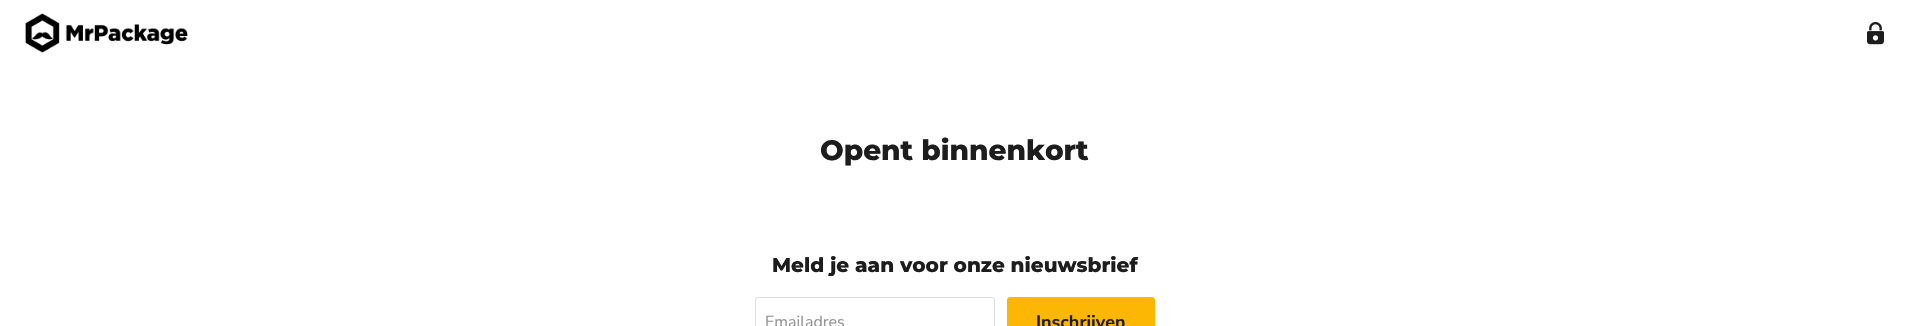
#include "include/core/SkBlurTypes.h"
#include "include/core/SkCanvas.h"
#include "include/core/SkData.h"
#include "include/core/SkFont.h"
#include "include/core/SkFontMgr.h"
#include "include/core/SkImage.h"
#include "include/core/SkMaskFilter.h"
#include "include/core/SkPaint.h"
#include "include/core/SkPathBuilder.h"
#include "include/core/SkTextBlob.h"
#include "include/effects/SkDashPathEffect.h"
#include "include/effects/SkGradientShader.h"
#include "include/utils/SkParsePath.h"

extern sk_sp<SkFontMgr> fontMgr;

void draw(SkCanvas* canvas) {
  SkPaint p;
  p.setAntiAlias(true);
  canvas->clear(SK_ColorWHITE);
  canvas->drawImageRect(SkImages::DeferredFromEncodedData(SkData::MakeFromFileName("images/1.png")), SkRect::MakeLTRB(25, 13, 188, 53), SkSamplingOptions());
  canvas->drawImageRect(SkImages::DeferredFromEncodedData(SkData::MakeFromFileName("images/2.png")), SkRect::MakeLTRB(1867, 22, 1884, 45), SkSamplingOptions());
  p.setStyle(SkPaint::kStroke_Style);
  p.setStrokeWidth(1);
  p.setColor(SkColorSetRGB(221, 221, 221));
  canvas->drawRoundRect(SkRect::MakeLTRB(755.5f, 297.5f, 994.5f, 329.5f), 2.5f, 2.5f, p);
  p.setStyle(SkPaint::kFill_Style);
  p.setColor(SkColorSetRGB(252, 183, 4));
  canvas->drawRoundRect(SkRect::MakeLTRB(1007.5f, 297.5f, 1154.5f, 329.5f), 2.5f, 2.5f, p);
  p.setStyle(SkPaint::kStroke_Style);
  canvas->drawRoundRect(SkRect::MakeLTRB(1007.5f, 297.5f, 1154.5f, 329.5f), 2.5f, 2.5f, p);
  SkFont font1(fontMgr->matchFamilyStyle("Montserrat", SkFontStyle(800, SkFontStyle::kNormal_Width, SkFontStyle::kUpright_Slant)), 28);
  font1.setSubpixel(true);
  p.setStyle(SkPaint::kFill_Style);
  p.setColor(SkColorSetRGB(29, 29, 29));
  canvas->drawString("Opent binnenkort", 820, 160, font1, p);
  SkFont font2(fontMgr->matchFamilyStyle("Montserrat", SkFontStyle(800, SkFontStyle::kNormal_Width, SkFontStyle::kUpright_Slant)), 20);
  font2.setSubpixel(true);
  canvas->drawString("Meld je aan voor onze nieuwsbrief", 772, 272, font2, p);
  SkFont font3(fontMgr->matchFamilyStyle("Nunito Sans", SkFontStyle::Normal()), 16);
  font3.setSubpixel(true);
  p.setColor(SkColorSetRGB(148, 148, 148));
  canvas->drawString("Emailadres", 765, 327, font3, p);
  SkFont font4(fontMgr->matchFamilyStyle("Nunito Sans", SkFontStyle::Bold()), 18);
  font4.setSubpixel(true);
  p.setColor(SkColorSetRGB(29, 29, 29));
  canvas->drawString("Inschrijven", 1036, 328, font4, p);
}
